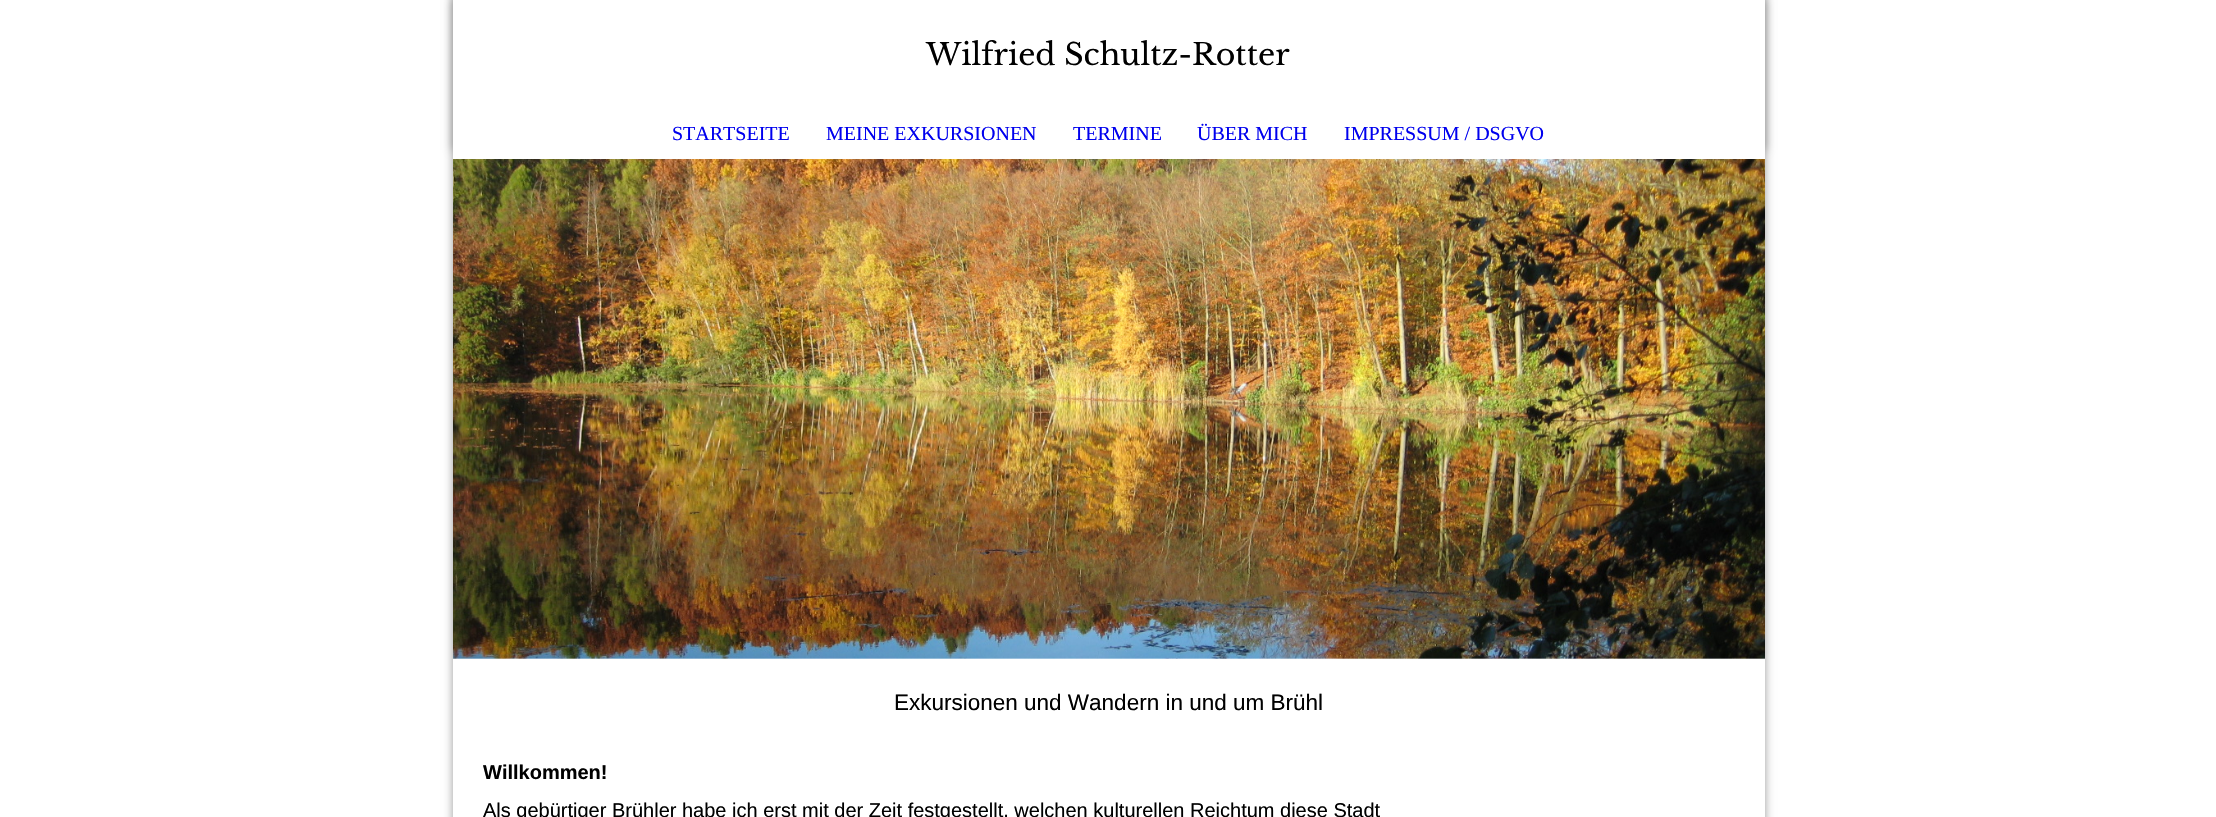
#include "include/core/SkBlurTypes.h"
#include "include/core/SkCanvas.h"
#include "include/core/SkData.h"
#include "include/core/SkFont.h"
#include "include/core/SkFontMgr.h"
#include "include/core/SkImage.h"
#include "include/core/SkMaskFilter.h"
#include "include/core/SkPaint.h"
#include "include/core/SkPathBuilder.h"
#include "include/core/SkTextBlob.h"
#include "include/effects/SkDashPathEffect.h"
#include "include/effects/SkGradientShader.h"
#include "include/utils/SkParsePath.h"

extern sk_sp<SkFontMgr> fontMgr;

void draw(SkCanvas* canvas) {
  SkPaint p;
  p.setAntiAlias(true);
  canvas->clear(SK_ColorWHITE);
  canvas->save();
  canvas->clipPath(SkPathBuilder(SkPathFillType::kEvenOdd).moveTo(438, 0).lineTo(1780, 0).lineTo(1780, 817).lineTo(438, 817).close().moveTo(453, 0).lineTo(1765, 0).lineTo(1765, 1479).lineTo(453, 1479).close().detach(), true);
  p.setColor(SkColorSetRGB(153, 153, 153));
  p.setMaskFilter(SkMaskFilter::MakeBlur(kNormal_SkBlurStyle, 4.5f));
  canvas->drawRect(SkRect::MakeLTRB(453, 0, 1765, 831), p);
  p.setMaskFilter(nullptr);
  canvas->restore();
  canvas->drawImageRect(SkImages::DeferredFromEncodedData(SkData::MakeFromFileName("images/1.png")), SkRect::MakeLTRB(453, 159, 1765, 659), SkSamplingOptions());
  canvas->save();
  canvas->clipPath(SkPathBuilder(SkPathFillType::kEvenOdd).moveTo(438, 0).lineTo(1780, 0).lineTo(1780, 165).lineTo(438, 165).close().moveTo(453, 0).lineTo(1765, 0).lineTo(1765, 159).lineTo(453, 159).close().detach(), true);
  p.setMaskFilter(SkMaskFilter::MakeBlur(kNormal_SkBlurStyle, 4.5f));
  canvas->drawRect(SkRect::MakeLTRB(453, -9, 1765, 150), p);
  p.setMaskFilter(nullptr);
  canvas->restore();
  SkFont font1(fontMgr->matchFamilyStyle("Libre Baskerville", SkFontStyle::Normal()), 30);
  font1.setSubpixel(true);
  p.setColor(SK_ColorBLACK);
  canvas->drawString("Wilfried Schultz-Rotter", 926, 65, font1, p);
  SkFont font2(fontMgr->matchFamilyStyle("Liberation Serif", SkFontStyle::Normal()), 20);
  font2.setSubpixel(true);
  p.setColor(SkColorSetRGB(0, 0, 238));
  canvas->drawString("STARTSEITE", 672, 140, font2, p);
  canvas->drawString("MEINE EXKURSIONEN", 826, 140, font2, p);
  canvas->drawString("TERMINE", 1073, 140, font2, p);
  canvas->drawString("ÜBER MICH", 1197, 140, font2, p);
  canvas->drawString("IMPRESSUM / DSGVO", 1344, 140, font2, p);
  SkFont font3(fontMgr->matchFamilyStyle("Liberation Sans", SkFontStyle::Normal()), 22.5f);
  font3.setSubpixel(true);
  p.setColor(SK_ColorBLACK);
  canvas->drawString("Exkursionen und Wandern in und um Brühl", 894, 710, font3, p);
  SkFont font4(fontMgr->matchFamilyStyle("Liberation Sans", SkFontStyle::Bold()), 20);
  font4.setSubpixel(true);
  canvas->drawString("Willkommen!", 483, 779, font4, p);
  SkFont font5(fontMgr->matchFamilyStyle("Liberation Sans", SkFontStyle::Normal()), 20);
  font5.setSubpixel(true);
  canvas->drawString("Als gebürtiger Brühler habe ich erst mit der Zeit festgestellt, welchen kulturellen Reichtum diese Stadt", 483, 817, font5, p);
}
